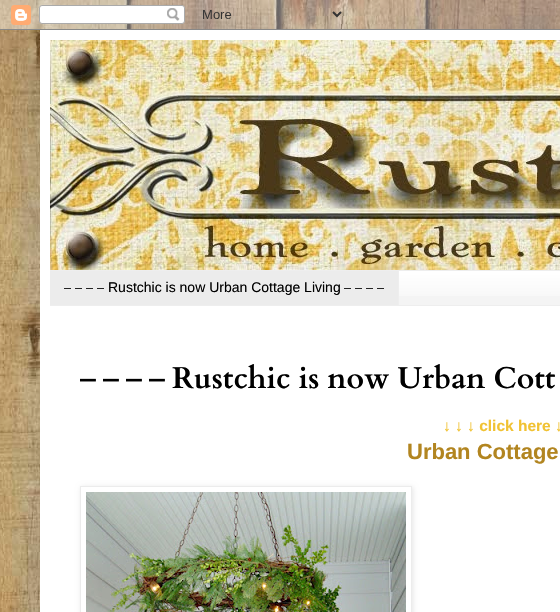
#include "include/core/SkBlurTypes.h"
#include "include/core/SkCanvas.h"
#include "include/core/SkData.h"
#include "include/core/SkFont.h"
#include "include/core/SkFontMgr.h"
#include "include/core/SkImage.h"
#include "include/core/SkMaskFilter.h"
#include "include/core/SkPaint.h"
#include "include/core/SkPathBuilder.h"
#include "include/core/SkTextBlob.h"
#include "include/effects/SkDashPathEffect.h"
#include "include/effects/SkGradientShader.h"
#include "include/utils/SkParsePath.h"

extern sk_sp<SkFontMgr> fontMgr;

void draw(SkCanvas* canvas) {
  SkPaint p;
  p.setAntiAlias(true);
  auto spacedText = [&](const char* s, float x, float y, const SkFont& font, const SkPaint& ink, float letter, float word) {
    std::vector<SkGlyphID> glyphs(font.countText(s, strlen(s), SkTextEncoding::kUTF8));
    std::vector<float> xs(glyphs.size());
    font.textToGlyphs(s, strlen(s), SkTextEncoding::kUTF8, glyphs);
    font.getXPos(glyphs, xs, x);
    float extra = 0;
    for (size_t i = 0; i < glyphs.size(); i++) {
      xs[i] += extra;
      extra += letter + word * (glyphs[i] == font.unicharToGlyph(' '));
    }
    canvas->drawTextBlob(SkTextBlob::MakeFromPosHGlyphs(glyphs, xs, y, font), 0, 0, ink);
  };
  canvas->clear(SK_ColorWHITE);
  canvas->drawImageRect(SkImages::DeferredFromEncodedData(SkData::MakeFromFileName("images/1.png")), SkRect::MakeLTRB(0, 0, 560, 612), SkSamplingOptions());
  p.setColor(SkColorSetARGB(38, 0, 0, 0));
  p.setMaskFilter(SkMaskFilter::MakeBlur(kNormal_SkBlurStyle, 20));
  canvas->drawRect(SkRect::MakeLTRB(40, 30, 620, 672), p);
  p.setMaskFilter(nullptr);
  canvas->drawImageRect(SkImages::DeferredFromEncodedData(SkData::MakeFromFileName("images/2.png")), SkRect::MakeLTRB(0, 0, 560, 30), SkSamplingOptions());
  p.setColor(SK_ColorWHITE);
  canvas->drawRect(SkRect::MakeLTRB(40, 30, 560, 612), p);
  canvas->drawImageRect(SkImages::DeferredFromEncodedData(SkData::MakeFromFileName("images/3.png")), SkRect::MakeLTRB(50, 40, 560, 270), SkSamplingOptions());
  p.setColor(SkColorSetRGB(244, 244, 244));
  canvas->drawRect(SkRect::MakeLTRB(399, 272, 560, 305), p);
  canvas->drawImageRect(SkImages::DeferredFromEncodedData(SkData::MakeFromFileName("images/4.png")), SkRect::MakeLTRB(399, 271, 560, 296), SkSamplingOptions());
  p.setColor(SkColorSetRGB(238, 238, 238));
  canvas->drawRect(SkRect::MakeLTRB(50, 270, 560, 271), p);
  canvas->drawRect(SkRect::MakeLTRB(50, 305, 560, 306), p);
  p.setColor(SkColorSetRGB(236, 236, 236));
  canvas->drawRect(SkRect::MakeLTRB(50, 271, 398, 305), p);
  p.setColor(SkColorSetRGB(238, 238, 238));
  canvas->drawRect(SkRect::MakeLTRB(398, 271, 399, 305), p);
  canvas->save();
  canvas->clipPath(SkPathBuilder(SkPathFillType::kEvenOdd).moveTo(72, 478).lineTo(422, 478).lineTo(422, 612).lineTo(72, 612).close().moveTo(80, 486).lineTo(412, 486).lineTo(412, 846).lineTo(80, 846).close().detach(), true);
  p.setColor(SkColorSetARGB(26, 0, 0, 0));
  p.setMaskFilter(SkMaskFilter::MakeBlur(kNormal_SkBlurStyle, 2.5f));
  canvas->drawRect(SkRect::MakeLTRB(81, 487, 413, 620), p);
  p.setMaskFilter(nullptr);
  canvas->restore();
  p.setStyle(SkPaint::kStroke_Style);
  p.setStrokeWidth(1);
  p.setColor(SkColorSetRGB(236, 236, 236));
  canvas->drawRect(SkRect::MakeLTRB(80.5f, 486.5f, 411.5f, 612.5f), p);
  canvas->drawImageRect(SkImages::DeferredFromEncodedData(SkData::MakeFromFileName("images/5.png")), SkRect::MakeLTRB(86, 492, 406, 612), SkSamplingOptions());
  SkFont font1(fontMgr->matchFamilyStyle("FreeSans", SkFontStyle::Normal()), 14);
  font1.setSubpixel(true);
  p.setStyle(SkPaint::kFill_Style);
  p.setColor(SK_ColorBLACK);
  spacedText("⎯ ⎯ ⎯ ⎯", 64, 292, font1, p, 0, 0.5f);
  SkFont font2(fontMgr->matchFamilyStyle("Liberation Sans", SkFontStyle::Normal()), 14);
  font2.setSubpixel(true);
  canvas->drawString("Rustchic is now Urban Cottage Living", 108, 292, font2, p);
  spacedText("⎯ ⎯ ⎯ ⎯", 344, 292, font1, p, 0, 0.5f);
  SkFont font3(fontMgr->matchFamilyStyle("FreeSans", SkFontStyle::Bold()), 30);
  font3.setSubpixel(true);
  spacedText("⎯ ⎯ ⎯ ⎯", 80, 388, font3, p, 0, 0.5f);
  SkFont font4(fontMgr->matchFamilyStyle("Cardo", SkFontStyle::Bold()), 30);
  font4.setSubpixel(true);
  canvas->drawString("Rustchic is now Urban Cott", 172, 388, font4, p);
  SkFont font5(fontMgr->matchFamilyStyle("Liberation Sans", SkFontStyle::Bold()), 15.5f);
  font5.setSubpixel(true);
  p.setColor(SkColorSetRGB(241, 194, 50));
  canvas->drawString("↓ ↓ ↓ click here ↓", 443, 431, font5, p);
  SkFont font6(fontMgr->matchFamilyStyle("Liberation Sans", SkFontStyle::Bold()), 22);
  font6.setSubpixel(true);
  p.setColor(SkColorSetRGB(178, 133, 32));
  canvas->drawString("Urban Cottage", 407, 459, font6, p);
}
